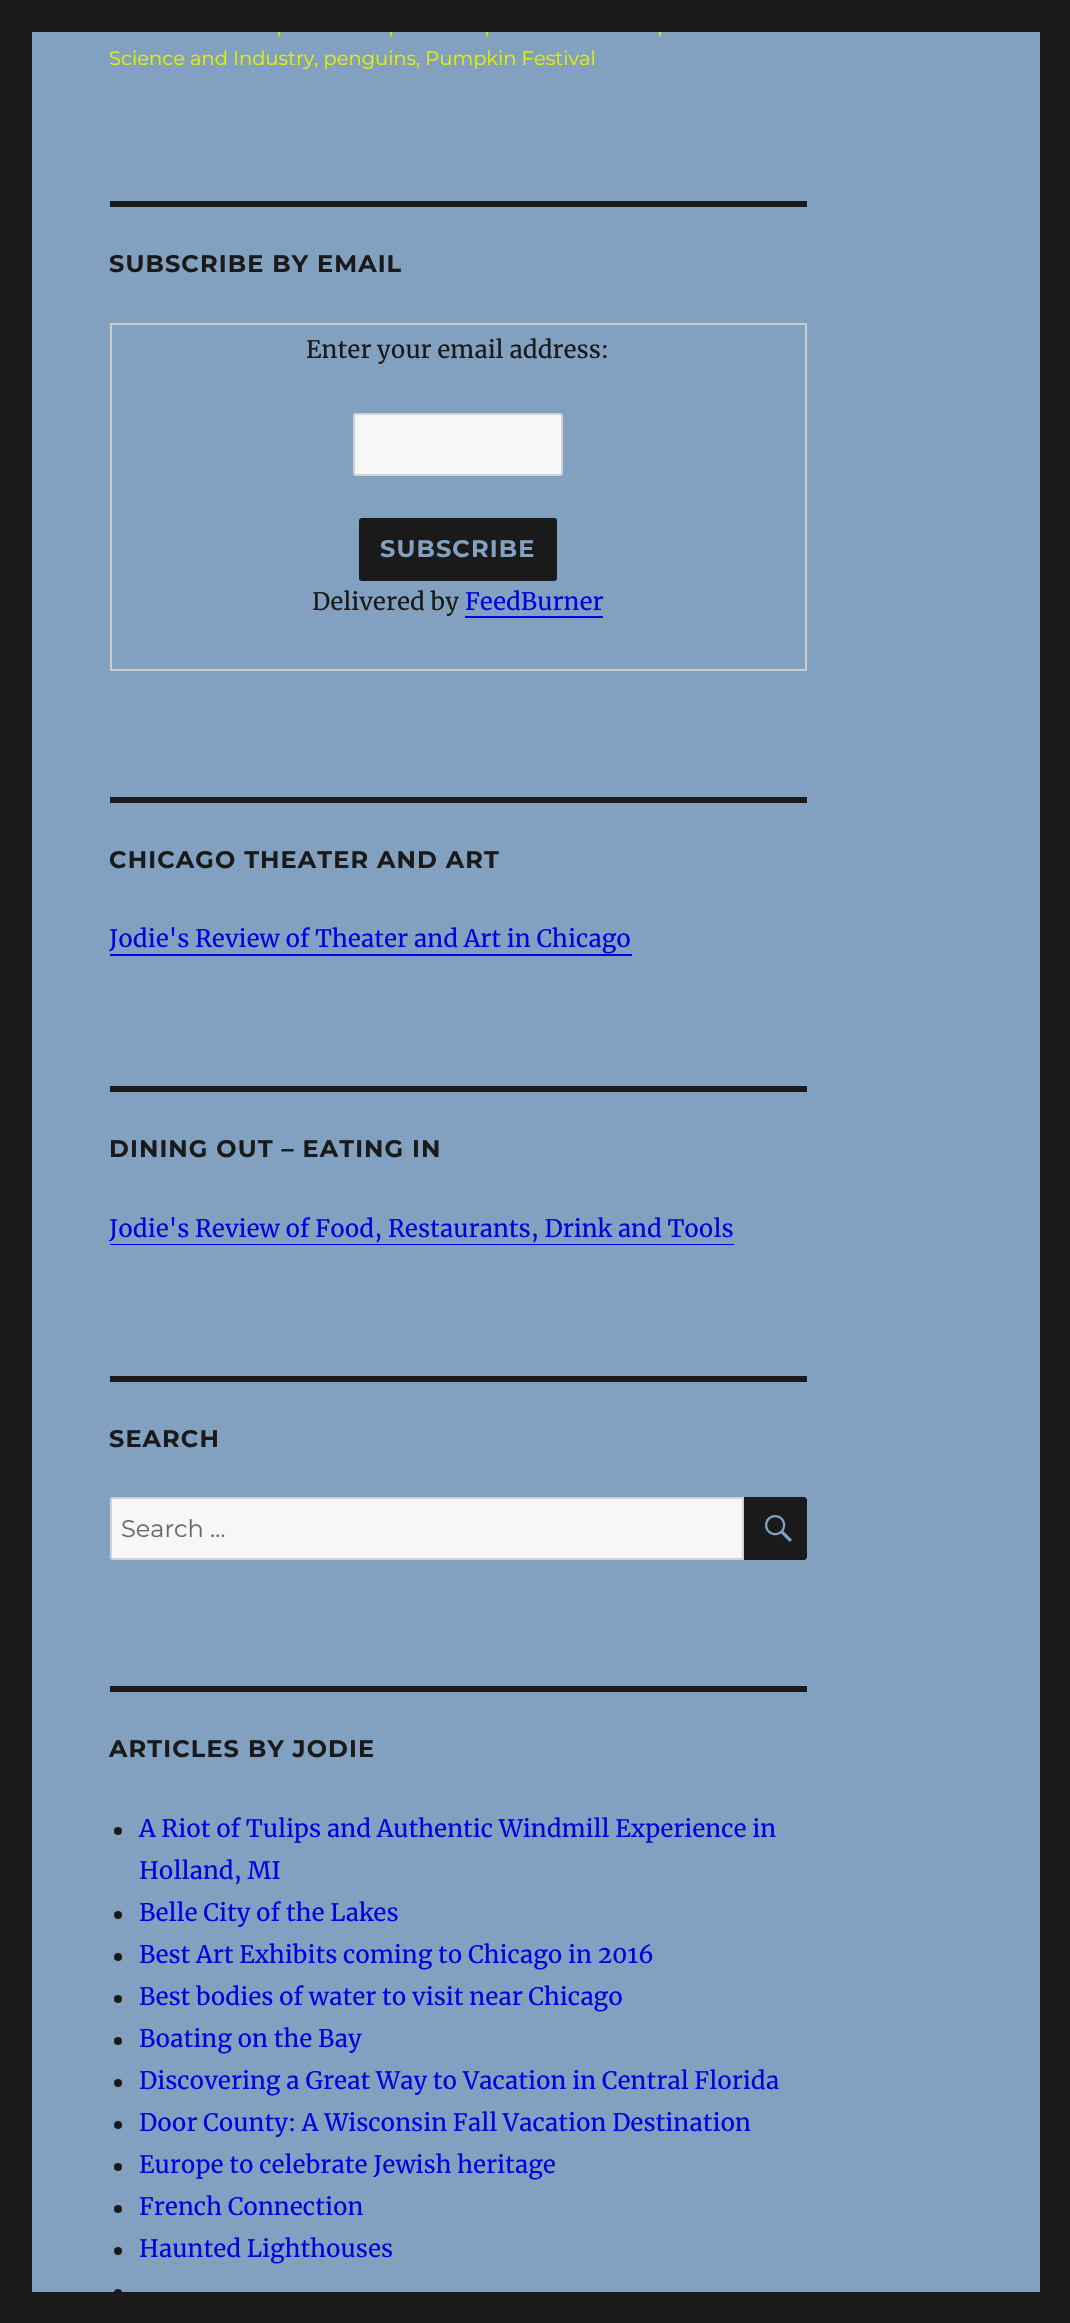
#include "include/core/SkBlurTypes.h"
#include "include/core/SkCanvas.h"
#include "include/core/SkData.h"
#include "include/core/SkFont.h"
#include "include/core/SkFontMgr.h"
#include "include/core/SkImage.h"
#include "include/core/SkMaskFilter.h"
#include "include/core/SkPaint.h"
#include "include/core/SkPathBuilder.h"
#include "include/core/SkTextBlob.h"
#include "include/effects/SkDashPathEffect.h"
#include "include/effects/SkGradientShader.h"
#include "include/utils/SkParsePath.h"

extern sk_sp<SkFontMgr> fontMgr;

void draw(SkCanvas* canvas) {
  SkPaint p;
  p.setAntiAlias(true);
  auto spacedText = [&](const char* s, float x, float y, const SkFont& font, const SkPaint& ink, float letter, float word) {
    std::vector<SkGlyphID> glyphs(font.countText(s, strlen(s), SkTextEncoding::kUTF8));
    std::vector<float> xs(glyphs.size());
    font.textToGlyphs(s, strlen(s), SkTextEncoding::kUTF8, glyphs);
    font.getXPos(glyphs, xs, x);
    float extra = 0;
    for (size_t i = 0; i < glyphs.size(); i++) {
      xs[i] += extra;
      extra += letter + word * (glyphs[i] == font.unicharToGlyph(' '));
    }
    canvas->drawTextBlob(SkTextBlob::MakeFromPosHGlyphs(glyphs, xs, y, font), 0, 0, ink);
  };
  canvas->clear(SkColorSetRGB(26, 26, 26));
  p.setColor(SkColorSetRGB(130, 160, 191));
  canvas->drawRect(SkRect::MakeLTRB(32, 32, 1040, 2292), p);
  p.setColor(SkColorSetRGB(26, 26, 26));
  canvas->drawRect(SkRect::MakeLTRB(110, 201, 807, 207), p);
  p.setStyle(SkPaint::kStroke_Style);
  p.setStrokeWidth(2);
  p.setColor(SkColorSetRGB(204, 204, 204));
  canvas->drawRect(SkRect::MakeLTRB(111, 324, 806, 670), p);
  p.setStyle(SkPaint::kFill_Style);
  p.setColor(SkColorSetRGB(247, 247, 247));
  canvas->drawRoundRect(SkRect::MakeLTRB(354, 414, 562, 475), 2, 2, p);
  p.setStyle(SkPaint::kStroke_Style);
  p.setColor(SkColorSetRGB(209, 209, 209));
  canvas->drawRoundRect(SkRect::MakeLTRB(354, 414, 562, 475), 2, 2, p);
  p.setStyle(SkPaint::kFill_Style);
  p.setColor(SkColorSetRGB(26, 26, 26));
  canvas->drawRoundRect(SkRect::MakeLTRB(359, 518, 557, 581), 3, 3, p);
  p.setColor(SkColorSetRGB(0, 3, 224));
  canvas->drawRect(SkRect::MakeLTRB(465, 616, 603, 618), p);
  p.setColor(SkColorSetRGB(26, 26, 26));
  canvas->drawRect(SkRect::MakeLTRB(110, 797, 807, 803), p);
  p.setColor(SkColorSetRGB(0, 3, 224));
  canvas->drawPath(SkPathBuilder().moveTo(110, 954).lineTo(110, 956).lineTo(632, 956).lineTo(632, 926).lineTo(632, 954).close().detach(), p);
  p.setColor(SkColorSetRGB(26, 26, 26));
  canvas->drawRect(SkRect::MakeLTRB(110, 1086, 807, 1092), p);
  p.setColor(SkColorSetRGB(0, 3, 224));
  canvas->drawPath(SkPathBuilder().moveTo(110, 1244).lineTo(110, 1245).lineTo(734, 1245).lineTo(734, 1215).lineTo(734, 1244).close().detach(), p);
  p.setColor(SkColorSetRGB(26, 26, 26));
  canvas->drawRect(SkRect::MakeLTRB(110, 1376, 807, 1382), p);
  p.setColor(SkColorSetRGB(247, 247, 247));
  canvas->drawPath(SkPathBuilder().moveTo(113, 1498).lineTo(743, 1498).lineTo(743, 1559).lineTo(113, 1559).cubicTo(112, 1559, 111, 1558, 111, 1557).lineTo(111, 1500).cubicTo(111, 1499, 112, 1498, 113, 1498).close().detach(), p);
  p.setStyle(SkPaint::kStroke_Style);
  p.setColor(SkColorSetRGB(209, 209, 209));
  canvas->drawPath(SkPathBuilder().moveTo(113, 1498).lineTo(743, 1498).lineTo(743, 1559).lineTo(113, 1559).cubicTo(112, 1559, 111, 1558, 111, 1557).lineTo(111, 1500).cubicTo(111, 1499, 112, 1498, 113, 1498).close().detach(), p);
  p.setStyle(SkPaint::kFill_Style);
  p.setColor(SkColorSetRGB(26, 26, 26));
  canvas->drawPath(SkPathBuilder().moveTo(744, 1497).lineTo(804, 1497).cubicTo(805.5f, 1497, 807, 1498.5f, 807, 1500).lineTo(807, 1557).cubicTo(807, 1558.5f, 805.5f, 1560, 804, 1560).lineTo(744, 1560).close().detach(), p);
  canvas->drawImageRect(SkImages::DeferredFromEncodedData(SkData::MakeFromFileName("images/1.png")), SkRect::MakeLTRB(765, 1515, 792, 1542), SkSamplingOptions());
  canvas->drawRect(SkRect::MakeLTRB(110, 1686, 807, 1692), p);
  canvas->drawCircle(118, 1831, 4, p);
  canvas->drawCircle(118, 1915, 4, p);
  canvas->drawCircle(118, 1957, 4, p);
  canvas->drawCircle(118, 1999, 4, p);
  canvas->drawCircle(118, 2041, 4, p);
  canvas->drawCircle(118, 2083, 4, p);
  canvas->drawCircle(118, 2125, 4, p);
  canvas->drawCircle(118, 2167, 4, p);
  canvas->drawCircle(118, 2209, 4, p);
  canvas->drawCircle(118, 2251, 4, p);
  canvas->drawCircle(118, 2293, 4, p);
  SkFont font1(fontMgr->matchFamilyStyle("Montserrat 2", SkFontStyle(100, SkFontStyle::kNormal_Width, SkFontStyle::kUpright_Slant)), 19.5f);
  font1.setSubpixel(true);
  p.setColor(SkColorSetRGB(227, 239, 0));
  canvas->drawString(",", 277, 34, font1, p);
  canvas->drawString(",", 389, 34, font1, p);
  canvas->drawString(",", 485, 34, font1, p);
  canvas->drawString(",", 658, 34, font1, p);
  canvas->drawString("Science and Industry, penguins, Pumpkin Festival", 109, 65, font1, p);
  SkFont font2(fontMgr->matchFamilyStyle("Montserrat", SkFontStyle(100, SkFontStyle::kNormal_Width, SkFontStyle::kUpright_Slant)), 24);
  font2.setSubpixel(true);
  p.setColor(SkColorSetRGB(26, 26, 26));
  spacedText("SUBSCRIBE BY EMAIL", 109, 272, font2, p, 1.1f, 0);
  SkFont font3(fontMgr->matchFamilyStyle("Merriweather", SkFontStyle::Normal()), 24);
  font3.setSubpixel(true);
  canvas->drawString("Enter your email address:", 306, 358, font3, p);
  p.setColor(SkColorSetRGB(130, 160, 191));
  spacedText("SUBSCRIBE", 380, 557, font2, p, 1.1f, 0);
  p.setColor(SkColorSetRGB(26, 26, 26));
  canvas->drawString("Delivered by", 312, 610, font3, p);
  p.setColor(SkColorSetRGB(0, 3, 224));
  canvas->drawString("FeedBurner", 465, 610, font3, p);
  p.setColor(SkColorSetRGB(26, 26, 26));
  spacedText("CHICAGO THEATER AND ART", 109, 868, font2, p, 1.1f, 0);
  p.setColor(SkColorSetRGB(0, 3, 224));
  canvas->drawString("Jodie's Review of Theater and Art in Chicago", 109, 947, font3, p);
  p.setColor(SkColorSetRGB(26, 26, 26));
  spacedText("DINING OUT – EATING IN", 109, 1157, font2, p, 1.1f, 0);
  p.setColor(SkColorSetRGB(0, 3, 224));
  canvas->drawString("Jodie's Review of Food, Restaurants, Drink and Tools", 109, 1237, font3, p);
  p.setColor(SkColorSetRGB(26, 26, 26));
  spacedText("SEARCH", 109, 1447, font2, p, 1.1f, 0);
  SkFont font4(fontMgr->matchFamilyStyle("Montserrat 2", SkFontStyle(100, SkFontStyle::kNormal_Width, SkFontStyle::kUpright_Slant)), 24);
  font4.setSubpixel(true);
  p.setColor(SkColorSetRGB(104, 104, 104));
  canvas->drawString("Search …", 121, 1537, font4, p);
  p.setColor(SkColorSetRGB(26, 26, 26));
  spacedText("ARTICLES BY JODIE", 109, 1757, font2, p, 1.1f, 0);
  p.setColor(SkColorSetRGB(0, 3, 224));
  canvas->drawString("A Riot of Tulips and Authentic Windmill Experience in", 139, 1837, font3, p);
  canvas->drawString("Holland, MI", 139, 1879, font3, p);
  canvas->drawString("Belle City of the Lakes", 139, 1921, font3, p);
  canvas->drawString("Best Art Exhibits coming to Chicago in 2016", 139, 1963, font3, p);
  canvas->drawString("Best bodies of water to visit near Chicago", 139, 2005, font3, p);
  canvas->drawString("Boating on the Bay", 139, 2047, font3, p);
  canvas->drawString("Discovering a Great Way to Vacation in Central Florida", 139, 2089, font3, p);
  canvas->drawString("Door County: A Wisconsin Fall Vacation Destination", 139, 2131, font3, p);
  canvas->drawString("Europe to celebrate Jewish heritage", 139, 2173, font3, p);
  canvas->drawString("French Connection", 139, 2215, font3, p);
  canvas->drawString("Haunted Lighthouses", 139, 2257, font3, p);
}
